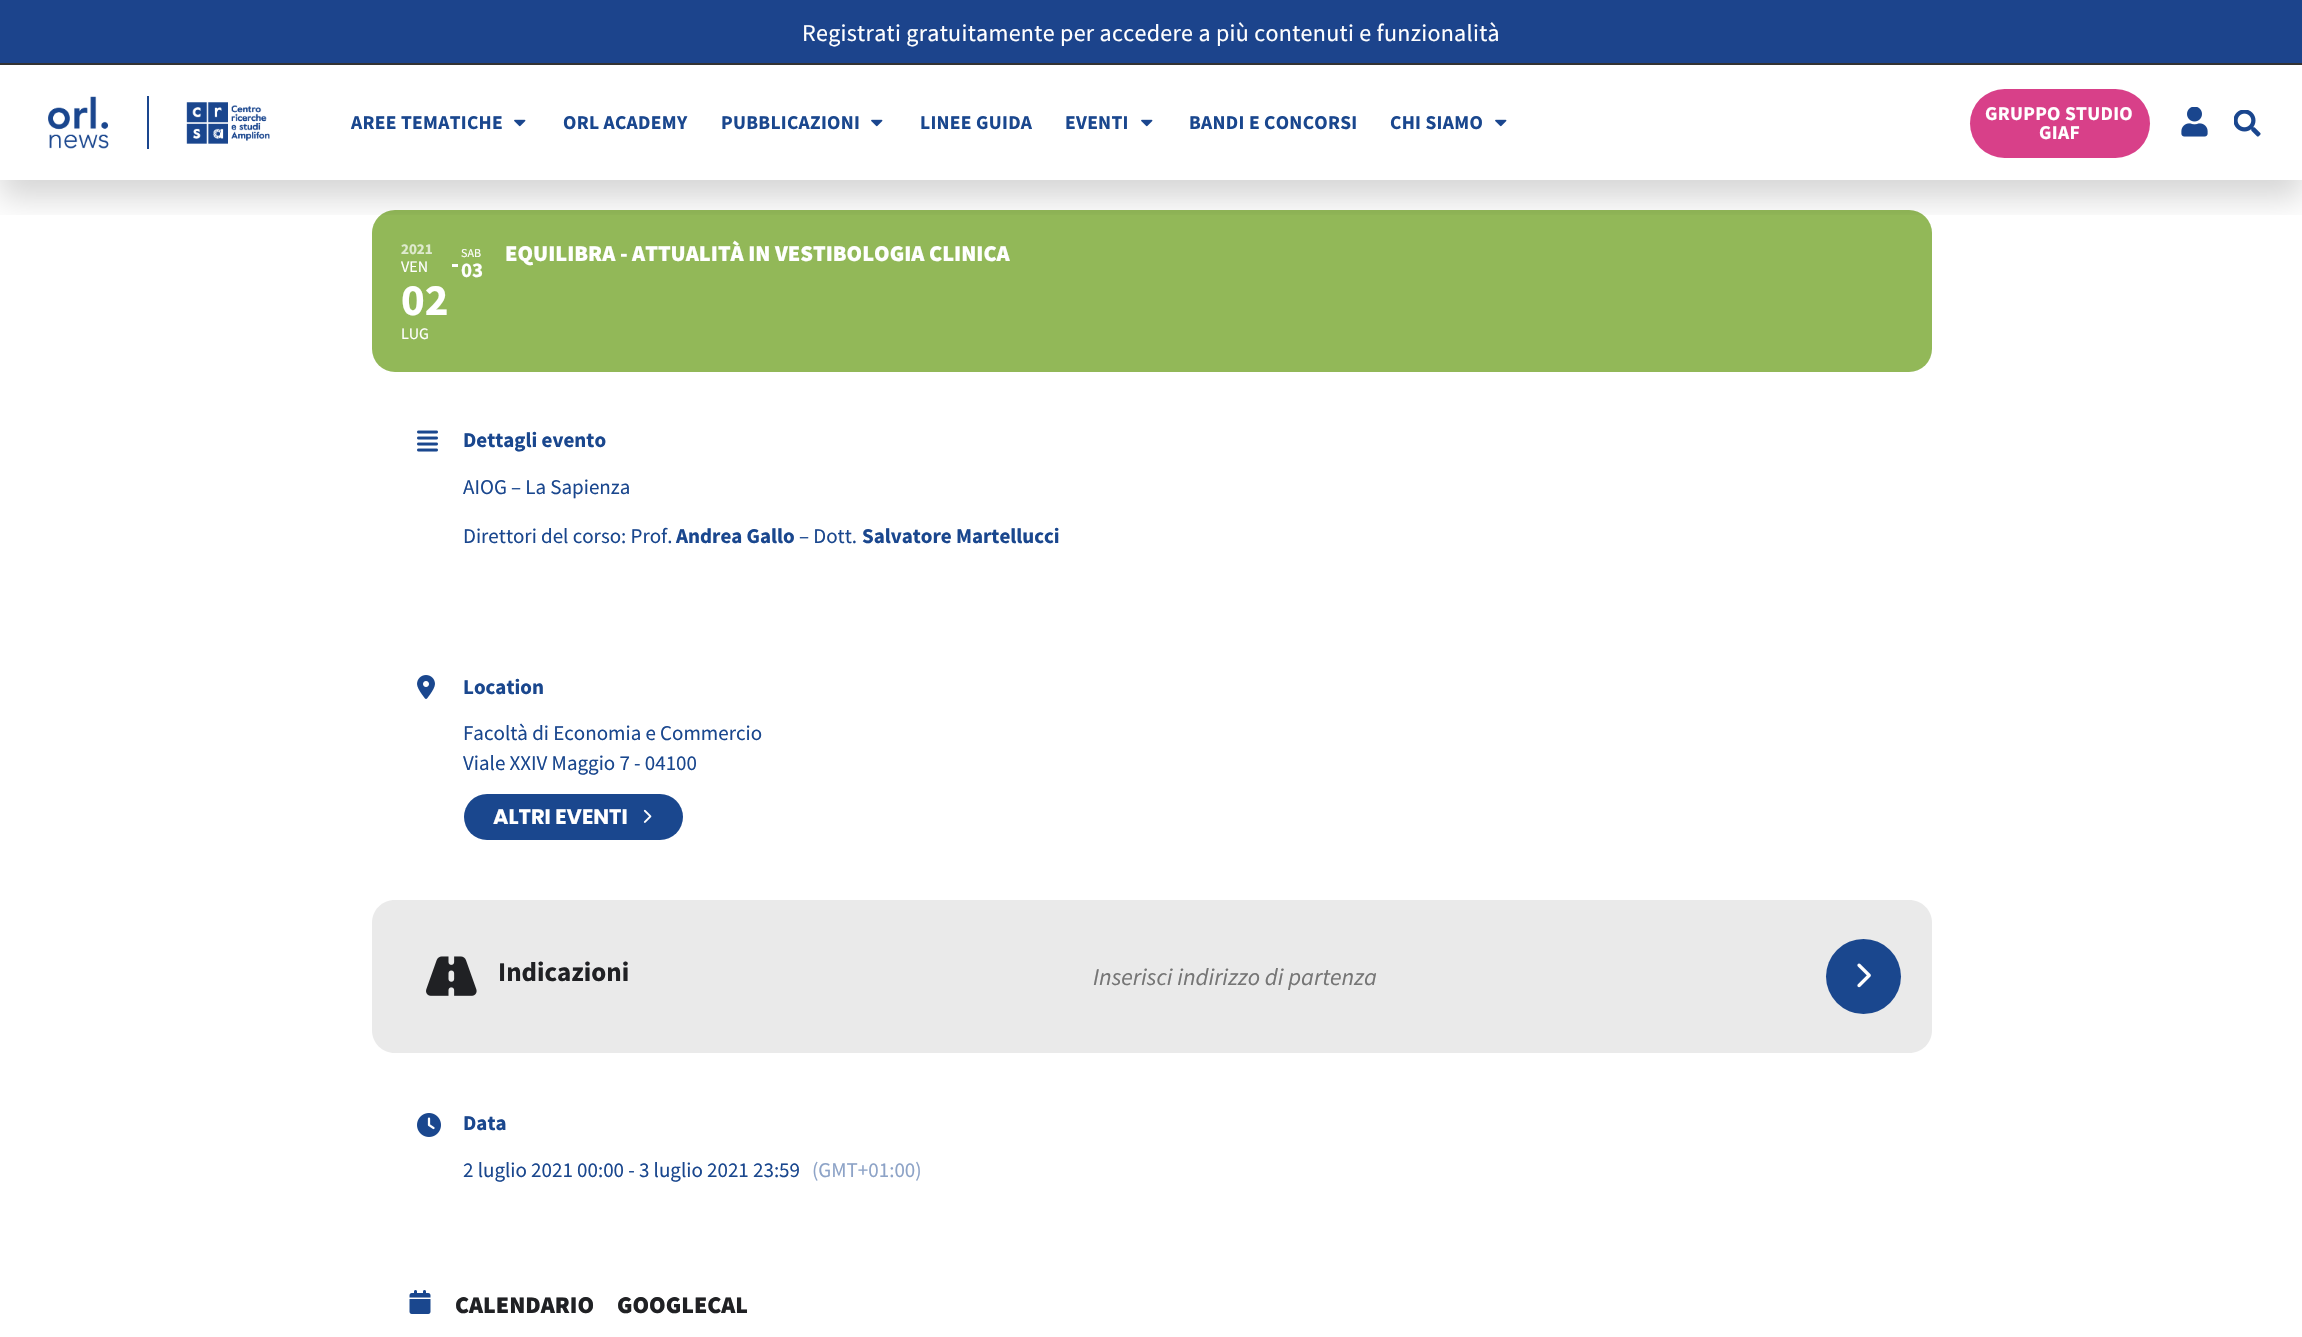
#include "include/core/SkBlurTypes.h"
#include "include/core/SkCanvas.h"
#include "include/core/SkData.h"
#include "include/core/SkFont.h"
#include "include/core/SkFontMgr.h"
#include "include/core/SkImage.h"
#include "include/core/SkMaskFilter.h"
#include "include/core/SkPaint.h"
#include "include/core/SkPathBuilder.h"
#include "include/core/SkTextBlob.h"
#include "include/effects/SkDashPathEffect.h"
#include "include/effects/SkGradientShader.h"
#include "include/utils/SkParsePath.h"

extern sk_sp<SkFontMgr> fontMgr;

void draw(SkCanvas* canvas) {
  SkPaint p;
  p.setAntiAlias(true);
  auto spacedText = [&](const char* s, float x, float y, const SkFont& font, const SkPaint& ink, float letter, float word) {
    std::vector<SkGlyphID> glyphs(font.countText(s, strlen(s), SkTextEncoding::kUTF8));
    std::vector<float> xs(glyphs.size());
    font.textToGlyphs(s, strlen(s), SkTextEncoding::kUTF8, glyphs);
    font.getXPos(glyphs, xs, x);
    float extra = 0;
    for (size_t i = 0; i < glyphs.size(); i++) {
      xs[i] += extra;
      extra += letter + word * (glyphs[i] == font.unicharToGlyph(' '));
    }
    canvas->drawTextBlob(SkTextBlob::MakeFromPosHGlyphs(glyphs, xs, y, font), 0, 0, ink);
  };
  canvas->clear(SK_ColorWHITE);
  p.setColor(SkColorSetRGB(28, 68, 140));
  canvas->drawRect(SkRect::MakeLTRB(0, 0, 2302, 63), p);
  p.setColor(SkColorSetRGB(51, 51, 51));
  canvas->drawRect(SkRect::MakeLTRB(0, 63, 2302, 65), p);
  p.setColor(SkColorSetRGB(146, 184, 88));
  canvas->drawRoundRect(SkRect::MakeLTRB(372, 210, 1932, 372), 23, 23, p);
  canvas->save();
  canvas->clipRect(SkRect::MakeLTRB(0, 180, 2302, 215));
  p.setColor(SkColorSetARGB(41, 0, 0, 0));
  p.setMaskFilter(SkMaskFilter::MakeBlur(kNormal_SkBlurStyle, 15));
  canvas->drawRect(SkRect::MakeLTRB(0, 83, 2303, 198), p);
  p.setMaskFilter(nullptr);
  canvas->restore();
  canvas->drawImageRect(SkImages::DeferredFromEncodedData(SkData::MakeFromFileName("images/1.png")), SkRect::MakeLTRB(48, 96, 109, 149), SkSamplingOptions());
  p.setColor(SkColorSetRGB(26, 70, 142));
  canvas->drawRect(SkRect::MakeLTRB(147, 96, 149, 149), p);
  canvas->drawImageRect(SkImages::DeferredFromEncodedData(SkData::MakeFromFileName("images/2.png")), SkRect::MakeLTRB(186, 102, 270, 144), SkSamplingOptions());
  canvas->drawImageRect(SkImages::DeferredFromEncodedData(SkData::MakeFromFileName("images/3.png")), SkRect::MakeLTRB(514, 119, 526, 127), SkSamplingOptions());
  canvas->drawImageRect(SkImages::DeferredFromEncodedData(SkData::MakeFromFileName("images/3.png")), SkRect::MakeLTRB(871, 119, 883, 127), SkSamplingOptions());
  canvas->drawImageRect(SkImages::DeferredFromEncodedData(SkData::MakeFromFileName("images/3.png")), SkRect::MakeLTRB(1141, 119, 1153, 127), SkSamplingOptions());
  canvas->drawImageRect(SkImages::DeferredFromEncodedData(SkData::MakeFromFileName("images/3.png")), SkRect::MakeLTRB(1495, 119, 1507, 127), SkSamplingOptions());
  p.setColor(SkColorSetRGB(216, 64, 137));
  canvas->drawRoundRect(SkRect::MakeLTRB(1970, 89, 2150, 158), 34.5f, 34.5f, p);
  canvas->drawImageRect(SkImages::DeferredFromEncodedData(SkData::MakeFromFileName("images/4.png")), SkRect::MakeLTRB(2181, 107, 2208, 137), SkSamplingOptions());
  canvas->drawImageRect(SkImages::DeferredFromEncodedData(SkData::MakeFromFileName("images/5.png")), SkRect::MakeLTRB(2234, 110, 2261, 137), SkSamplingOptions());
  p.setColor(SK_ColorWHITE);
  canvas->drawRect(SkRect::MakeLTRB(452, 264, 458, 267), p);
  canvas->drawImageRect(SkImages::DeferredFromEncodedData(SkData::MakeFromFileName("images/6.png")), SkRect::MakeLTRB(417, 430, 438, 452), SkSamplingOptions());
  canvas->drawImageRect(SkImages::DeferredFromEncodedData(SkData::MakeFromFileName("images/7.png")), SkRect::MakeLTRB(417, 675, 435, 699), SkSamplingOptions());
  p.setColor(SkColorSetRGB(26, 71, 142));
  canvas->drawRoundRect(SkRect::MakeLTRB(464, 794, 683, 840), 23, 23, p);
  canvas->drawImageRect(SkImages::DeferredFromEncodedData(SkData::MakeFromFileName("images/8.png")), SkRect::MakeLTRB(643, 809, 652, 823), SkSamplingOptions());
  p.setColor(SkColorSetRGB(234, 234, 234));
  canvas->drawPath(SkPathBuilder().moveTo(395, 900).lineTo(1909, 900).cubicTo(1922, 900, 1932, 910, 1932, 923).lineTo(1932, 1030).cubicTo(1932, 1043, 1922, 1053, 1909, 1053).lineTo(395, 1053).cubicTo(382, 1053, 372, 1043, 372, 1030).lineTo(372, 923).cubicTo(372, 910, 382, 900, 395, 900).close().detach(), p);
  canvas->drawImageRect(SkImages::DeferredFromEncodedData(SkData::MakeFromFileName("images/9.png")), SkRect::MakeLTRB(426, 956, 477, 996), SkSamplingOptions());
  p.setColor(SkColorSetRGB(26, 71, 142));
  canvas->drawCircle(1863.5f, 976.5f, 37.5f, p);
  canvas->drawImageRect(SkImages::DeferredFromEncodedData(SkData::MakeFromFileName("images/10.png")), SkRect::MakeLTRB(1857, 963, 1871, 988), SkSamplingOptions());
  canvas->drawImageRect(SkImages::DeferredFromEncodedData(SkData::MakeFromFileName("images/11.png")), SkRect::MakeLTRB(417, 1113, 441, 1137), SkSamplingOptions());
  canvas->drawImageRect(SkImages::DeferredFromEncodedData(SkData::MakeFromFileName("images/12.png")), SkRect::MakeLTRB(409, 1290, 431, 1314), SkSamplingOptions());
  SkFont font1(fontMgr->matchFamilyStyle("Source Sans Pro", SkFontStyle::Normal()), 24);
  font1.setSubpixel(true);
  p.setColor(SK_ColorWHITE);
  spacedText("Registrati gratuitamente per accedere a più contenuti e funzionalità", 802, 41, font1, p, 0.3f, 0);
  SkFont font2(fontMgr->matchFamilyStyle("Source Sans Pro", SkFontStyle::Bold()), 19.5f);
  font2.setSubpixel(true);
  p.setColor(SkColorSetRGB(26, 71, 142));
  spacedText("AREE TEMATICHE", 351, 129, font2, p, 0.3f, 0);
  spacedText("ORL ACADEMY", 563, 129, font2, p, 0.3f, 0);
  spacedText("PUBBLICAZIONI", 721, 129, font2, p, 0.3f, 0);
  spacedText("LINEE GUIDA", 920, 129, font2, p, 0.3f, 0);
  spacedText("EVENTI", 1065, 129, font2, p, 0.3f, 0);
  spacedText("BANDI E CONCORSI", 1189, 129, font2, p, 0.3f, 0);
  spacedText("CHI SIAMO", 1390, 129, font2, p, 0.3f, 0);
  p.setColor(SK_ColorWHITE);
  spacedText("GRUPPO STUDIO", 1985, 120, font2, p, 0.3f, 0);
  spacedText("GIAF", 2039, 139, font2, p, 0.3f, 0);
  SkFont font3(fontMgr->matchFamilyStyle("Source Sans Pro", SkFontStyle::Bold()), 15);
  font3.setSubpixel(true);
  p.setColor(SkColorSetRGB(222, 234, 205));
  canvas->drawString("2021", 401, 254, font3, p);
  SkFont font4(fontMgr->matchFamilyStyle("Source Sans Pro", SkFontStyle::Normal()), 16);
  font4.setSubpixel(true);
  p.setColor(SK_ColorWHITE);
  canvas->drawString("VEN", 401, 272, font4, p);
  SkFont font5(fontMgr->matchFamilyStyle("Source Sans Pro", SkFontStyle::Bold()), 45);
  font5.setSubpixel(true);
  canvas->drawString("02", 401, 315, font5, p);
  canvas->drawString("LUG", 401, 339, font4, p);
  SkFont font6(fontMgr->matchFamilyStyle("Source Sans Pro", SkFontStyle::Normal()), 12);
  font6.setSubpixel(true);
  canvas->drawString("SAB", 461, 257, font6, p);
  SkFont font7(fontMgr->matchFamilyStyle("Source Sans Pro", SkFontStyle::Bold()), 21);
  font7.setSubpixel(true);
  canvas->drawString("03", 461, 277, font7, p);
  SkFont font8(fontMgr->matchFamilyStyle("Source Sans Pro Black", SkFontStyle(900, SkFontStyle::kNormal_Width, SkFontStyle::kUpright_Slant)), 22.5f);
  font8.setSubpixel(true);
  canvas->drawString("EQUILIBRA - ATTUALITÀ IN VESTIBOLOGIA CLINICA", 505, 261, font8, p);
  p.setColor(SkColorSetRGB(26, 71, 142));
  canvas->drawString("Dettagli evento", 463, 447, font7, p);
  SkFont font9(fontMgr->matchFamilyStyle("Source Sans Pro", SkFontStyle::Normal()), 21);
  font9.setSubpixel(true);
  canvas->drawString("AIOG – La Sapienza", 463, 494, font9, p);
  canvas->drawString("Direttori del corso: Prof.", 463, 543, font9, p);
  canvas->drawString("Andrea Gallo", 676, 543, font7, p);
  canvas->drawString("– Dott.", 799, 543, font9, p);
  canvas->drawString("Salvatore Martellucci", 862, 543, font7, p);
  canvas->drawString("Location", 463, 694, font7, p);
  canvas->drawString("Facoltà di Economia e Commercio", 463, 740, font9, p);
  canvas->drawString("Viale XXIV Maggio 7 - 04100", 463, 770, font9, p);
  SkFont font10(fontMgr->matchFamilyStyle("Poppins", SkFontStyle::Bold()), 21);
  font10.setSubpixel(true);
  p.setColor(SK_ColorWHITE);
  canvas->drawString("ALTRI EVENTI", 493, 824, font10, p);
  SkFont font11(fontMgr->matchFamilyStyle("Source Sans Pro", SkFontStyle::Bold()), 27);
  font11.setSubpixel(true);
  p.setColor(SkColorSetRGB(32, 33, 36));
  canvas->drawString("Indicazioni", 498, 981, font11, p);
  SkFont font12(fontMgr->matchFamilyStyle("Source Sans Pro", SkFontStyle::Italic()), 24);
  font12.setSubpixel(true);
  p.setColor(SkColorSetRGB(117, 117, 117));
  canvas->drawString("Inserisci indirizzo di partenza", 1093, 985, font12, p);
  p.setColor(SkColorSetRGB(26, 71, 142));
  canvas->drawString("Data", 463, 1130, font7, p);
  canvas->drawString("2 luglio 2021 00:00 - 3 luglio 2021 23:59", 463, 1177, font9, p);
  p.setColor(SkColorSetRGB(141, 163, 199));
  canvas->drawString("(GMT+01:00)", 812, 1177, font9, p);
  SkFont font13(fontMgr->matchFamilyStyle("Source Sans Pro Black", SkFontStyle(900, SkFontStyle::kNormal_Width, SkFontStyle::kUpright_Slant)), 24);
  font13.setSubpixel(true);
  p.setColor(SkColorSetRGB(32, 33, 36));
  canvas->drawString("CALENDARIO", 455, 1313, font13, p);
  canvas->drawString("GOOGLECAL", 617, 1313, font13, p);
}
